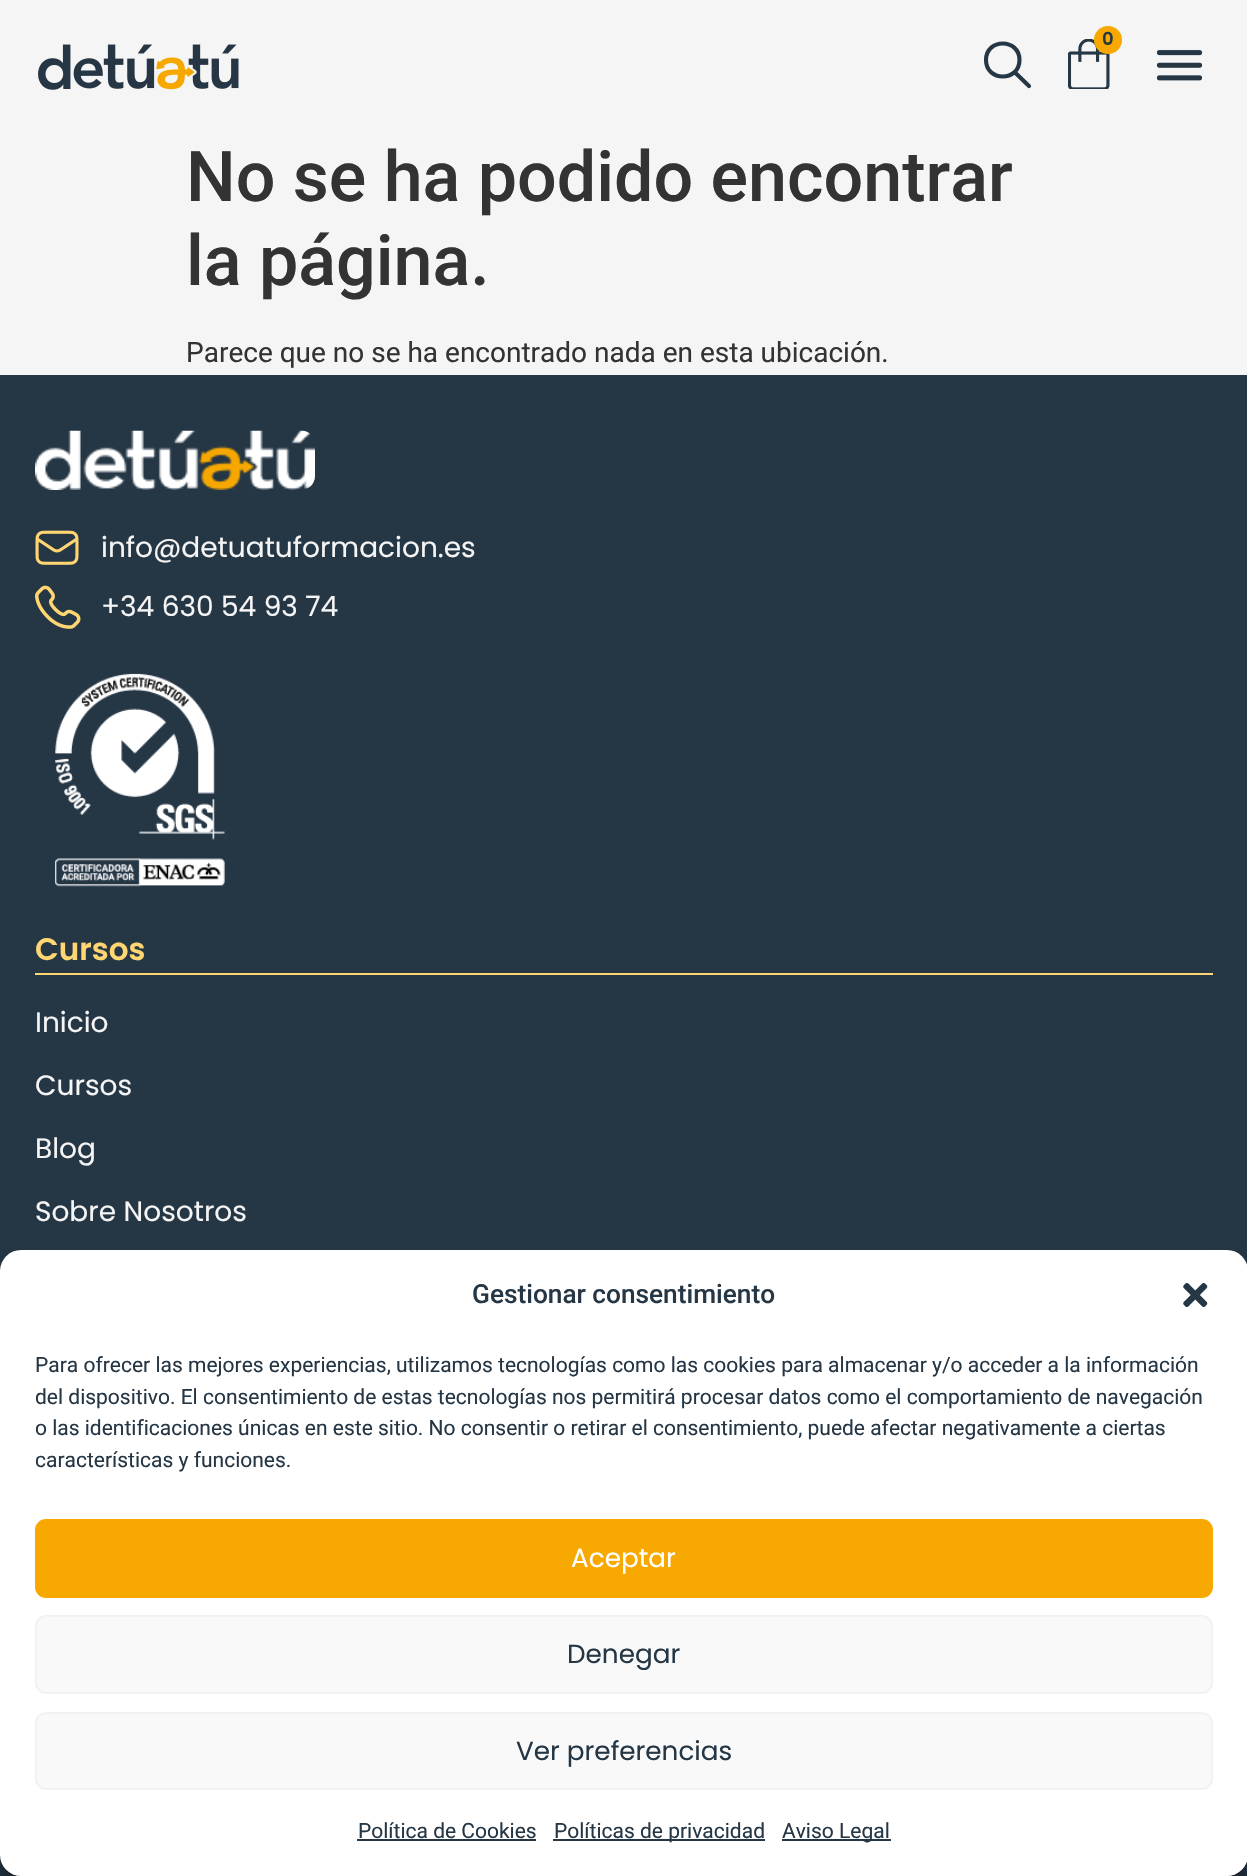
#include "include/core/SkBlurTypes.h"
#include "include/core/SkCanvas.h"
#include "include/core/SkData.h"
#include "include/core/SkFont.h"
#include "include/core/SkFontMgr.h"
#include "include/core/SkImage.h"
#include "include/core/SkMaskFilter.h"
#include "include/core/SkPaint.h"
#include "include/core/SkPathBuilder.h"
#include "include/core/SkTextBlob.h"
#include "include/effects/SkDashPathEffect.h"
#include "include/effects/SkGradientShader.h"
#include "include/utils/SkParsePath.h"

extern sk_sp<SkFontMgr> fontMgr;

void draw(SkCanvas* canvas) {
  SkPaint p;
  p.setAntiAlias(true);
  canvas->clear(SkColorSetRGB(245, 245, 245));
  canvas->drawImageRect(SkImages::DeferredFromEncodedData(SkData::MakeFromFileName("images/1.png")), SkRect::MakeLTRB(1068, 39, 1110, 89), SkSamplingOptions());
  p.setColor(SkColorSetRGB(247, 168, 1));
  canvas->drawCircle(1108, 40, 14, p);
  p.setStyle(SkPaint::kStroke_Style);
  p.setStrokeWidth(4.1f);
  p.setStrokeCap(SkPaint::kRound_Cap);
  p.setStrokeJoin(SkPaint::kRound_Join);
  p.setColor(SkColorSetRGB(37, 54, 69));
  canvas->drawPath(SkPathBuilder().moveTo(1029, 86).lineTo(1014.5f, 72).moveTo(986, 60).cubicTo(986, 82, 1019.5f, 82, 1019.5f, 60).cubicTo(1019.5f, 38, 986, 38, 986, 60).close().detach(), p);
  canvas->drawImageRect(SkImages::DeferredFromEncodedData(SkData::MakeFromFileName("images/2.png")), SkRect::MakeLTRB(1157, 50, 1202, 81), SkSamplingOptions());
  canvas->drawImageRect(SkImages::DeferredFromEncodedData(SkData::MakeFromFileName("images/3.png")), SkRect::MakeLTRB(38, 44, 239, 90), SkSamplingOptions());
  p.setStyle(SkPaint::kFill_Style);
  canvas->drawRect(SkRect::MakeLTRB(0, 375, 1247, 1876), p);
  canvas->drawImageRect(SkImages::DeferredFromEncodedData(SkData::MakeFromFileName("images/4.png")), SkRect::MakeLTRB(35, 430, 315, 490), SkSamplingOptions());
  canvas->drawImageRect(SkImages::DeferredFromEncodedData(SkData::MakeFromFileName("images/5.png")), SkRect::MakeLTRB(35, 530, 79, 565), SkSamplingOptions());
  canvas->drawImageRect(SkImages::DeferredFromEncodedData(SkData::MakeFromFileName("images/6.png")), SkRect::MakeLTRB(35, 585, 81, 629), SkSamplingOptions());
  canvas->drawImageRect(SkImages::DeferredFromEncodedData(SkData::MakeFromFileName("images/7.png")), SkRect::MakeLTRB(55, 673, 225, 887), SkSamplingOptions());
  p.setColor(SkColorSetRGB(255, 214, 113));
  canvas->drawRect(SkRect::MakeLTRB(35, 973, 1213, 975), p);
  p.setColor(SkColorSetARGB(59, 0, 0, 0));
  p.setMaskFilter(SkMaskFilter::MakeBlur(kNormal_SkBlurStyle, 5));
  canvas->drawRoundRect(SkRect::MakeLTRB(0, 1260, 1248, 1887), 21, 21, p);
  p.setMaskFilter(nullptr);
  p.setColor(SkColorSetARGB(48, 0, 0, 0));
  p.setMaskFilter(SkMaskFilter::MakeBlur(kNormal_SkBlurStyle, 17.5f));
  canvas->drawRoundRect(SkRect::MakeLTRB(0, 1267, 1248, 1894), 21, 21, p);
  p.setMaskFilter(nullptr);
  p.setColor(SK_ColorWHITE);
  canvas->drawRoundRect(SkRect::MakeLTRB(0, 1250, 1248, 1876), 21, 21, p);
  canvas->drawImageRect(SkImages::DeferredFromEncodedData(SkData::MakeFromFileName("images/8.png")), SkRect::MakeLTRB(1183, 1283, 1208, 1307), SkSamplingOptions());
  p.setColor(SkColorSetRGB(247, 168, 1));
  canvas->drawRoundRect(SkRect::MakeLTRB(36, 1520, 1212, 1597), 10, 10, p);
  p.setStyle(SkPaint::kStroke_Style);
  p.setStrokeWidth(2);
  p.setStrokeCap(SkPaint::kButt_Cap);
  p.setStrokeJoin(SkPaint::kMiter_Join);
  canvas->drawRoundRect(SkRect::MakeLTRB(36, 1520, 1212, 1597), 10, 10, p);
  p.setStyle(SkPaint::kFill_Style);
  p.setColor(SkColorSetRGB(249, 249, 249));
  canvas->drawRoundRect(SkRect::MakeLTRB(36, 1616, 1212, 1693), 10, 10, p);
  p.setStyle(SkPaint::kStroke_Style);
  p.setColor(SkColorSetRGB(242, 242, 242));
  canvas->drawRoundRect(SkRect::MakeLTRB(36, 1616, 1212, 1693), 10, 10, p);
  p.setStyle(SkPaint::kFill_Style);
  p.setColor(SkColorSetRGB(249, 249, 249));
  canvas->drawRoundRect(SkRect::MakeLTRB(36, 1713, 1212, 1789), 10, 10, p);
  p.setStyle(SkPaint::kStroke_Style);
  p.setColor(SkColorSetRGB(242, 242, 242));
  canvas->drawRoundRect(SkRect::MakeLTRB(36, 1713, 1212, 1789), 10, 10, p);
  p.setStyle(SkPaint::kFill_Style);
  p.setColor(SkColorSetRGB(37, 54, 69));
  canvas->drawRect(SkRect::MakeLTRB(357, 1839, 536, 1841), p);
  canvas->drawRect(SkRect::MakeLTRB(553, 1839, 765, 1841), p);
  canvas->drawRect(SkRect::MakeLTRB(782, 1839, 891, 1841), p);
  SkFont font1(fontMgr->matchFamilyStyle("Poppins", SkFontStyle(600, SkFontStyle::kNormal_Width, SkFontStyle::kUpright_Slant)), 18);
  font1.setSubpixel(true);
  canvas->drawString("0", 1102, 45, font1, p);
  SkFont font2(fontMgr->matchFamilyStyle("Roboto", SkFontStyle(500, SkFontStyle::kNormal_Width, SkFontStyle::kUpright_Slant)), 70);
  font2.setSubpixel(true);
  p.setColor(SkColorSetRGB(51, 51, 51));
  canvas->drawString("No se ha podido encontrar", 186, 201, font2, p);
  canvas->drawString("la página.", 186, 285, font2, p);
  SkFont font3(fontMgr->matchFamilyStyle("Roboto", SkFontStyle::Normal()), 28);
  font3.setSubpixel(true);
  canvas->drawString("Parece que no se ha encontrado nada en esta ubicación.", 186, 362, font3, p);
  SkFont font4(fontMgr->matchFamilyStyle("Poppins", SkFontStyle::Normal()), 28);
  font4.setSubpixel(true);
  p.setColor(SkColorSetRGB(245, 245, 245));
  canvas->drawString("info@detuatuformacion.es", 101, 557, font4, p);
  canvas->drawString("+34 630 54 93 74", 101, 616, font4, p);
  SkFont font5(fontMgr->matchFamilyStyle("Poppins", SkFontStyle(600, SkFontStyle::kNormal_Width, SkFontStyle::kUpright_Slant)), 31);
  font5.setSubpixel(true);
  p.setColor(SkColorSetRGB(255, 214, 113));
  canvas->drawString("Cursos", 35, 960, font5, p);
  p.setColor(SkColorSetRGB(245, 245, 245));
  canvas->drawString("Inicio", 35, 1032, font4, p);
  canvas->drawString("Cursos", 35, 1095, font4, p);
  canvas->drawString("Blog", 35, 1158, font4, p);
  canvas->drawString("Sobre Nosotros", 35, 1221, font4, p);
  SkFont font6(fontMgr->matchFamilyStyle("Roboto", SkFontStyle(500, SkFontStyle::kNormal_Width, SkFontStyle::kUpright_Slant)), 26.25f);
  font6.setSubpixel(true);
  p.setColor(SkColorSetRGB(37, 54, 69));
  canvas->drawString("Gestionar consentimiento", 472, 1303, font6, p);
  SkFont font7(fontMgr->matchFamilyStyle("Roboto", SkFontStyle::Normal()), 21);
  font7.setSubpixel(true);
  canvas->drawString("Para ofrecer las mejores experiencias, utilizamos tecnologías como las cookies para almacenar y/o acceder a la información", 35, 1372, font7, p);
  canvas->drawString("del dispositivo. El consentimiento de estas tecnologías nos permitirá procesar datos como el comportamiento de navegación", 35, 1404, font7, p);
  canvas->drawString("o las identificaciones únicas en este sitio. No consentir o retirar el consentimiento, puede afectar negativamente a ciertas", 35, 1435, font7, p);
  canvas->drawString("características y funciones.", 35, 1467, font7, p);
  SkFont font8(fontMgr->matchFamilyStyle("Poppins", SkFontStyle::Normal()), 26.25f);
  font8.setSubpixel(true);
  p.setColor(SK_ColorWHITE);
  canvas->drawString("Aceptar", 571, 1567, font8, p);
  p.setColor(SkColorSetRGB(37, 54, 69));
  canvas->drawString("Denegar", 567, 1663, font8, p);
  canvas->drawString("Ver preferencias", 516, 1760, font8, p);
  canvas->drawString("Política de Cookies", 358, 1838, font7, p);
  canvas->drawString("Políticas de privacidad", 554, 1838, font7, p);
  canvas->drawString("Aviso Legal", 782, 1838, font7, p);
}
